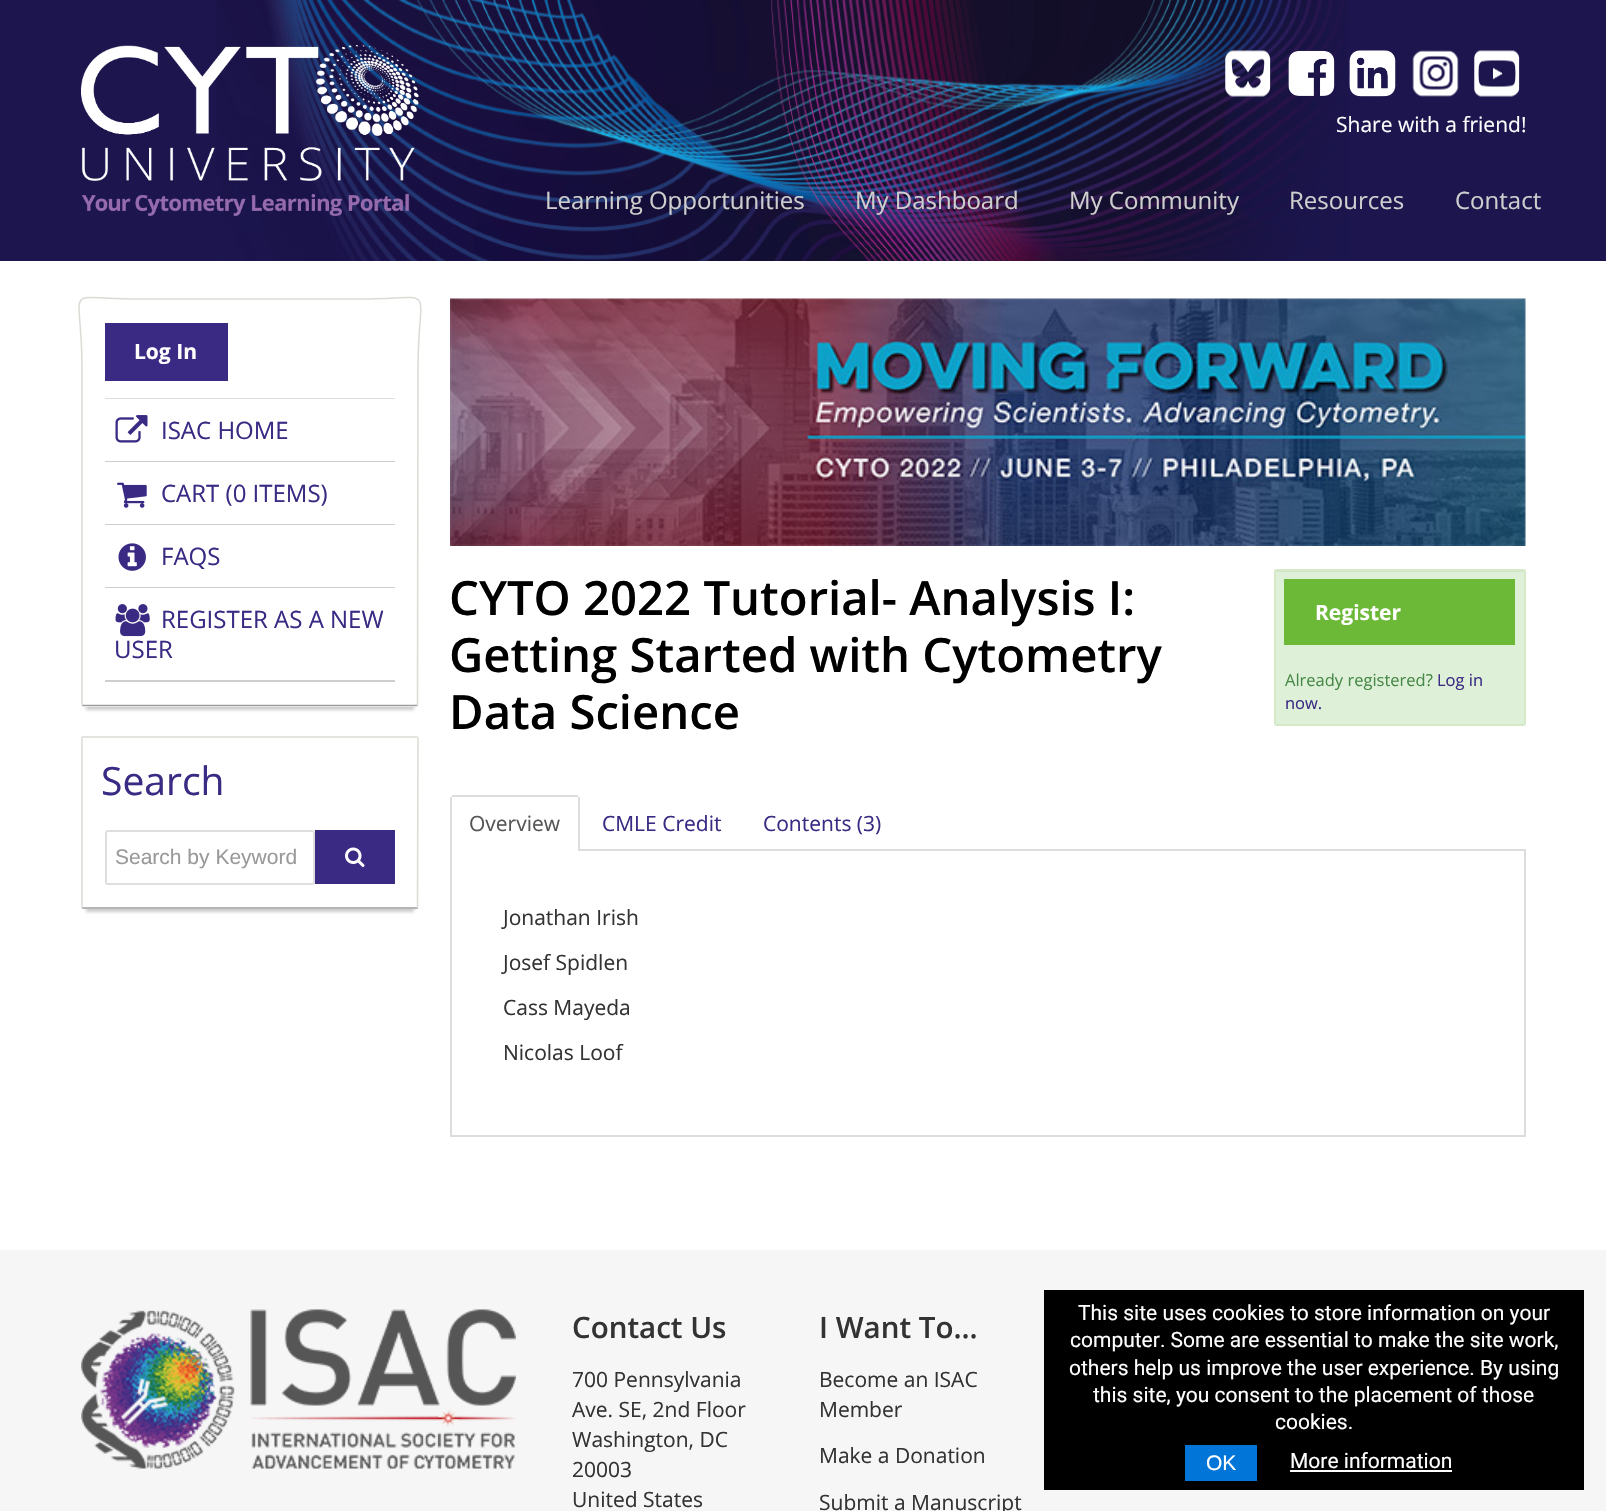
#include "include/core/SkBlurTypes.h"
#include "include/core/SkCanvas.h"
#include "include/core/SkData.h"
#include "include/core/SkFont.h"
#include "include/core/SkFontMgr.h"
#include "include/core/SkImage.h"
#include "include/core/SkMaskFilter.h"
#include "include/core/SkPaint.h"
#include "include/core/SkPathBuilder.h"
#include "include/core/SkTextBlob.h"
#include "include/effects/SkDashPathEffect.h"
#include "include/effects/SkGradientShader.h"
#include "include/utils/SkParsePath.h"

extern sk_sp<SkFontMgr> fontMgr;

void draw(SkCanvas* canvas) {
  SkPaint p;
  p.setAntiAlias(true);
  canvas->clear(SK_ColorWHITE);
  p.setColor(SkColorSetRGB(28, 21, 78));
  canvas->drawRect(SkRect::MakeLTRB(0, 0, 1606, 261), p);
  canvas->drawImageRect(SkImages::DeferredFromEncodedData(SkData::MakeFromFileName("images/1.png")), SkRect::MakeLTRB(216, 0, 1348, 261), SkSamplingOptions());
  canvas->drawImageRect(SkImages::DeferredFromEncodedData(SkData::MakeFromFileName("images/2.png")), SkRect::MakeLTRB(81, 45, 419, 216), SkSamplingOptions());
  canvas->drawImageRect(SkImages::DeferredFromEncodedData(SkData::MakeFromFileName("images/3.png")), SkRect::MakeLTRB(1225, 50, 1271, 97), SkSamplingOptions());
  canvas->drawImageRect(SkImages::DeferredFromEncodedData(SkData::MakeFromFileName("images/4.png")), SkRect::MakeLTRB(1288, 50, 1335, 96), SkSamplingOptions());
  canvas->drawImageRect(SkImages::DeferredFromEncodedData(SkData::MakeFromFileName("images/5.png")), SkRect::MakeLTRB(1349, 50, 1396, 97), SkSamplingOptions());
  canvas->drawImageRect(SkImages::DeferredFromEncodedData(SkData::MakeFromFileName("images/6.png")), SkRect::MakeLTRB(1412, 50, 1459, 97), SkSamplingOptions());
  canvas->drawImageRect(SkImages::DeferredFromEncodedData(SkData::MakeFromFileName("images/7.png")), SkRect::MakeLTRB(1474, 50, 1520, 97), SkSamplingOptions());
  p.setColor(SkColorSetARGB(51, 0, 0, 0));
  p.setMaskFilter(SkMaskFilter::MakeBlur(kNormal_SkBlurStyle, 1.5f));
  canvas->drawRect(SkRect::MakeLTRB(86, 311, 414, 710), p);
  p.setMaskFilter(nullptr);
  p.setColor(SK_ColorWHITE);
  canvas->drawRoundRect(SkRect::MakeLTRB(81, 299, 419, 707), 1.5f, 1.5f, p);
  p.setStyle(SkPaint::kStroke_Style);
  p.setStrokeWidth(1.5f);
  p.setColor(SkColorSetRGB(156, 156, 156));
  canvas->drawPath(SkPathBuilder().moveTo(417.5f, 705.5f).lineTo(82, 705.5f).detach(), p);
  p.setColor(SkColorSetRGB(219, 219, 214));
  canvas->drawPath(SkPathBuilder().moveTo(82, 705.5f).lineTo(82, 367.5f).cubicTo(82, 281, 59.5f, 299, 138, 299).lineTo(361, 299).cubicTo(440, 299, 418, 281, 418, 367.5f).lineTo(417.5f, 705.5f).detach(), p);
  p.setStyle(SkPaint::kFill_Style);
  p.setColor(SkColorSetRGB(222, 222, 222));
  canvas->drawRect(SkRect::MakeLTRB(105, 398, 395, 399), p);
  p.setColor(SkColorSetRGB(58, 42, 131));
  canvas->drawRect(SkRect::MakeLTRB(105, 323, 228, 381), p);
  p.setColor(SkColorSetRGB(206, 206, 206));
  canvas->drawRect(SkRect::MakeLTRB(105, 461, 395, 462), p);
  canvas->drawImageRect(SkImages::DeferredFromEncodedData(SkData::MakeFromFileName("images/8.png")), SkRect::MakeLTRB(115, 415, 148, 443), SkSamplingOptions());
  canvas->drawRect(SkRect::MakeLTRB(105, 524, 395, 525), p);
  canvas->drawImageRect(SkImages::DeferredFromEncodedData(SkData::MakeFromFileName("images/9.png")), SkRect::MakeLTRB(117, 482, 147, 508), SkSamplingOptions());
  canvas->drawRect(SkRect::MakeLTRB(105, 587, 395, 588), p);
  canvas->drawImageRect(SkImages::DeferredFromEncodedData(SkData::MakeFromFileName("images/10.png")), SkRect::MakeLTRB(118, 543, 146, 571), SkSamplingOptions());
  canvas->drawRect(SkRect::MakeLTRB(105, 680, 395, 682), p);
  canvas->drawImageRect(SkImages::DeferredFromEncodedData(SkData::MakeFromFileName("images/11.png")), SkRect::MakeLTRB(115, 604, 150, 637), SkSamplingOptions());
  canvas->save();
  canvas->clipRect(SkRect::MakeLTRB(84, 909, 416, 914));
  p.setColor(SkColorSetARGB(51, 0, 0, 0));
  p.setMaskFilter(SkMaskFilter::MakeBlur(kNormal_SkBlurStyle, 1.5f));
  canvas->drawRect(SkRect::MakeLTRB(86, 749, 414, 912), p);
  p.setMaskFilter(nullptr);
  canvas->restore();
  p.setColor(SkColorSetRGB(181, 181, 181));
  canvas->drawRect(SkRect::MakeLTRB(82, 907, 418, 909), p);
  p.setStyle(SkPaint::kStroke_Style);
  p.setColor(SkColorSetRGB(219, 219, 214));
  canvas->drawPath(SkPathBuilder().moveTo(82, 908).lineTo(82, 738).lineTo(82.5f, 737).lineTo(417, 737).lineTo(418, 738).lineTo(417.5f, 908).detach(), p);
  p.setStrokeWidth(2);
  p.setColor(SkColorSetRGB(222, 222, 222));
  canvas->drawRoundRect(SkRect::MakeLTRB(106, 831, 314, 884), 2, 2, p);
  p.setStyle(SkPaint::kFill_Style);
  p.setColor(SkColorSetRGB(58, 42, 131));
  canvas->drawRect(SkRect::MakeLTRB(315, 830, 395, 884), p);
  canvas->drawImageRect(SkImages::DeferredFromEncodedData(SkData::MakeFromFileName("images/12.png")), SkRect::MakeLTRB(345, 847, 365, 867), SkSamplingOptions());
  canvas->drawImageRect(SkImages::DeferredFromEncodedData(SkData::MakeFromFileName("images/13.png")), SkRect::MakeLTRB(450, 298, 1526, 546), SkSamplingOptions());
  p.setColor(SkColorSetRGB(223, 240, 216));
  canvas->drawRect(SkRect::MakeLTRB(1276, 571, 1524, 724), p);
  p.setColor(SkColorSetARGB(13, 0, 0, 0));
  canvas->drawPath(SkPathBuilder().moveTo(1276, 572).lineTo(1522, 572).cubicTo(1523, 572, 1524, 572, 1524, 573).cubicTo(1524, 572, 1524, 570, 1522, 570).lineTo(1276, 570).cubicTo(1275, 570, 1275, 572, 1275, 573).close().detach(), p);
  p.setStyle(SkPaint::kStroke_Style);
  p.setColor(SkColorSetRGB(214, 233, 198));
  canvas->drawRoundRect(SkRect::MakeLTRB(1275, 570, 1525, 725), 2, 2, p);
  p.setStyle(SkPaint::kFill_Style);
  p.setColor(SkColorSetRGB(108, 184, 55));
  canvas->drawRect(SkRect::MakeLTRB(1284, 579, 1515, 645), p);
  p.setStyle(SkPaint::kStroke_Style);
  p.setColor(SkColorSetRGB(221, 221, 221));
  canvas->drawRect(SkRect::MakeLTRB(451, 850, 1525, 1136), p);
  p.setStyle(SkPaint::kFill_Style);
  p.setColor(SK_ColorWHITE);
  canvas->drawPath(SkPathBuilder().moveTo(453, 795).lineTo(576, 795).cubicTo(577.5f, 795, 579, 796.5f, 579, 798).lineTo(579, 851).lineTo(450, 851).lineTo(450, 798).cubicTo(450, 796.5f, 451.5f, 795, 453, 795).close().detach(), p);
  p.setColor(SkColorSetRGB(221, 221, 221));
  canvas->drawRect(SkRect::MakeLTRB(452, 795, 578, 797), p);
  canvas->drawRect(SkRect::MakeLTRB(578, 797, 580, 851), p);
  canvas->drawRect(SkRect::MakeLTRB(450, 797, 452, 851), p);
  p.setColor(SkColorSetRGB(246, 246, 246));
  canvas->drawRect(SkRect::MakeLTRB(0, 1250, 1606, 1511), p);
  canvas->drawImageRect(SkImages::DeferredFromEncodedData(SkData::MakeFromFileName("images/14.png")), SkRect::MakeLTRB(81, 1309, 516, 1469), SkSamplingOptions());
  p.setColor(SK_ColorBLACK);
  canvas->drawRect(SkRect::MakeLTRB(1044, 1290, 1584, 1490), p);
  p.setColor(SkColorSetRGB(2, 117, 216));
  canvas->drawRect(SkRect::MakeLTRB(1185, 1445, 1257, 1481), p);
  p.setColor(SK_ColorWHITE);
  canvas->drawRect(SkRect::MakeLTRB(1290, 1470, 1452, 1472), p);
  SkFont font1(fontMgr->matchFamilyStyle("Open Sans", SkFontStyle::Normal()), 21);
  font1.setSubpixel(true);
  canvas->drawString("Share with a friend!", 1336, 132, font1, p);
  SkFont font2(fontMgr->matchFamilyStyle("Open Sans", SkFontStyle::Normal()), 24);
  font2.setSubpixel(true);
  p.setColor(SkColorSetRGB(206, 206, 206));
  canvas->drawString("Learning Opportunities", 545, 209, font2, p);
  canvas->drawString("My Dashboard", 855, 209, font2, p);
  canvas->drawString("My Community", 1069, 209, font2, p);
  canvas->drawString("Resources", 1289, 209, font2, p);
  canvas->drawString("Contact", 1455, 209, font2, p);
  SkFont font3(fontMgr->matchFamilyStyle("Open Sans", SkFontStyle::Bold()), 21);
  font3.setSubpixel(true);
  p.setColor(SK_ColorWHITE);
  canvas->drawString("Log In", 134, 359, font3, p);
  p.setColor(SkColorSetRGB(58, 42, 131));
  canvas->drawString("ISAC HOME", 161, 439, font2, p);
  canvas->drawString("CART (0 ITEMS)", 161, 502, font2, p);
  canvas->drawString("FAQS", 161, 565, font2, p);
  canvas->drawString("REGISTER AS A NEW", 161, 628, font2, p);
  canvas->drawString("USER", 114, 658, font2, p);
  SkFont font4(fontMgr->matchFamilyStyle("Open Sans", SkFontStyle::Normal()), 39);
  font4.setSubpixel(true);
  canvas->drawString("Search", 101, 795, font4, p);
  SkFont font5(fontMgr->matchFamilyStyle("Liberation Sans", SkFontStyle::Normal()), 21);
  font5.setSubpixel(true);
  p.setColor(SkColorSetRGB(153, 153, 153));
  canvas->drawString("Search by Keyword", 115, 864, font5, p);
  SkFont font6(fontMgr->matchFamilyStyle("Open Sans", SkFontStyle(600, SkFontStyle::kNormal_Width, SkFontStyle::kUpright_Slant)), 47.25f);
  font6.setSubpixel(true);
  p.setColor(SK_ColorBLACK);
  canvas->drawString("CYTO 2022 Tutorial- Analysis I:", 449, 615, font6, p);
  canvas->drawString("Getting Started with Cytometry", 449, 672, font6, p);
  canvas->drawString("Data Science", 449, 729, font6, p);
  p.setColor(SK_ColorWHITE);
  canvas->drawString("Register", 1315, 620, font3, p);
  SkFont font7(fontMgr->matchFamilyStyle("Open Sans", SkFontStyle::Normal()), 16.5f);
  font7.setSubpixel(true);
  p.setColor(SkColorSetRGB(70, 136, 71));
  canvas->drawString("Already registered?", 1285, 686, font7, p);
  p.setColor(SkColorSetRGB(58, 42, 131));
  canvas->drawString("Log in", 1437, 686, font7, p);
  canvas->drawString("now.", 1285, 709, font7, p);
  p.setColor(SkColorSetRGB(85, 85, 85));
  canvas->drawString("Overview", 469, 831, font1, p);
  p.setColor(SkColorSetRGB(58, 42, 131));
  canvas->drawString("CMLE Credit", 602, 831, font1, p);
  canvas->drawString("Contents (3)", 763, 831, font1, p);
  p.setColor(SkColorSetRGB(51, 51, 51));
  canvas->drawString("Jonathan Irish", 503, 925, font1, p);
  canvas->drawString("Josef Spidlen", 503, 970, font1, p);
  canvas->drawString("Cass Mayeda", 503, 1015, font1, p);
  canvas->drawString("Nicolas Loof", 503, 1060, font1, p);
  SkFont font8(fontMgr->matchFamilyStyle("Open Sans", SkFontStyle(600, SkFontStyle::kNormal_Width, SkFontStyle::kUpright_Slant)), 29.5f);
  font8.setSubpixel(true);
  canvas->drawString("Contact Us", 572, 1338, font8, p);
  canvas->drawString("700 Pennsylvania", 572, 1387, font1, p);
  canvas->drawString("Ave. SE, 2nd Floor", 572, 1417, font1, p);
  canvas->drawString("Washington, DC", 572, 1447, font1, p);
  canvas->drawString("20003", 572, 1477, font1, p);
  canvas->drawString("United States", 572, 1507, font1, p);
  canvas->drawString("I Want To...", 819, 1338, font8, p);
  canvas->drawString("Become an ISAC", 819, 1387, font1, p);
  canvas->drawString("Member", 819, 1417, font1, p);
  canvas->drawString("Make a Donation", 819, 1463, font1, p);
  canvas->drawString("Submit a Manuscript", 819, 1510, font1, p);
  SkFont font9(fontMgr->matchFamilyStyle("Roboto", SkFontStyle::Normal()), 21);
  font9.setSubpixel(true);
  p.setColor(SK_ColorWHITE);
  canvas->drawString("This site uses cookies to store information on your", 1078, 1320, font9, p);
  canvas->drawString("computer. Some are essential to make the site work,", 1070, 1347, font9, p);
  canvas->drawString("others help us improve the user experience. By using", 1069, 1375, font9, p);
  canvas->drawString("this site, you consent to the placement of those", 1093, 1402, font9, p);
  canvas->drawString("cookies.", 1275, 1429, font9, p);
  canvas->drawString("OK", 1206, 1470, font5, p);
  canvas->drawString("More information", 1290, 1468, font9, p);
}
